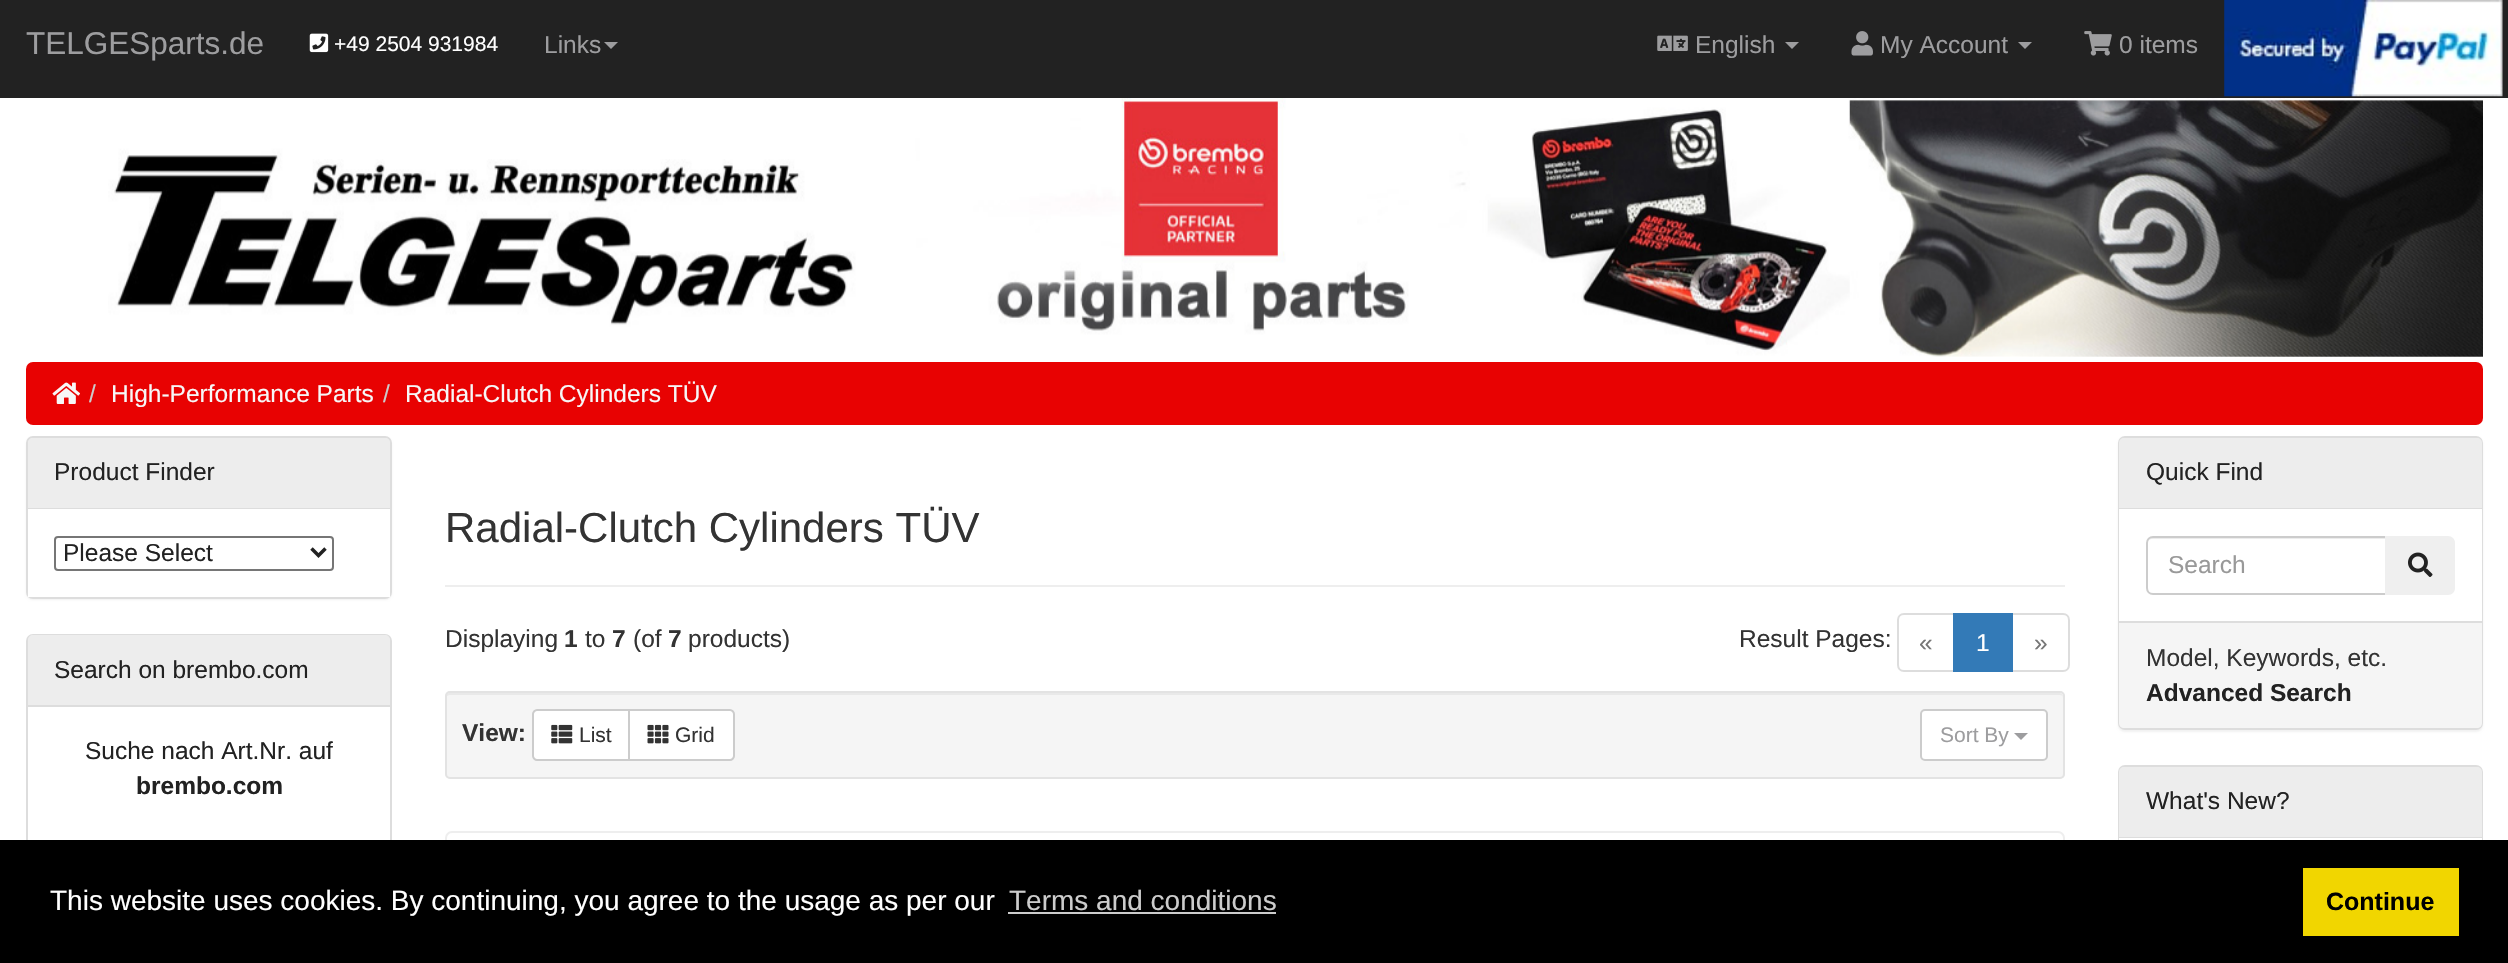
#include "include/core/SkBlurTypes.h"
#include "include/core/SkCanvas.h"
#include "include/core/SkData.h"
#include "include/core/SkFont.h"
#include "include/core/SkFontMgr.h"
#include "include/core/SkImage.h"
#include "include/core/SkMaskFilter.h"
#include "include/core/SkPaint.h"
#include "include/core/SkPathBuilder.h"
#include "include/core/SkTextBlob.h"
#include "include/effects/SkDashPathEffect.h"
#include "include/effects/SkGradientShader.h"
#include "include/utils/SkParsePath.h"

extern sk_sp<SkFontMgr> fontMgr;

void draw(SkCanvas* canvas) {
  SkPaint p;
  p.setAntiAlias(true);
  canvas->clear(SK_ColorWHITE);
  p.setColor(SkColorSetRGB(34, 34, 34));
  canvas->drawRect(SkRect::MakeLTRB(0, 0, 2508, 98), p);
  canvas->drawImageRect(SkImages::DeferredFromEncodedData(SkData::MakeFromFileName("images/1.png")), SkRect::MakeLTRB(309, 33, 329, 53), SkSamplingOptions());
  p.setColor(SkColorSetRGB(157, 157, 159));
  canvas->drawPath(SkPathBuilder().moveTo(604, 42).lineTo(618, 42).lineTo(611, 49).close().detach(), p);
  canvas->drawImageRect(SkImages::DeferredFromEncodedData(SkData::MakeFromFileName("images/2.png")), SkRect::MakeLTRB(1657, 35, 1688, 51), SkSamplingOptions());
  canvas->drawPath(SkPathBuilder().moveTo(1785, 42).lineTo(1799, 42).lineTo(1792, 49).close().detach(), p);
  canvas->drawImageRect(SkImages::DeferredFromEncodedData(SkData::MakeFromFileName("images/3.png")), SkRect::MakeLTRB(1851, 31, 1873, 56), SkSamplingOptions());
  canvas->drawPath(SkPathBuilder().moveTo(2018, 42).lineTo(2032, 42).lineTo(2025, 49).close().detach(), p);
  canvas->drawImageRect(SkImages::DeferredFromEncodedData(SkData::MakeFromFileName("images/4.png")), SkRect::MakeLTRB(2084, 31, 2112, 56), SkSamplingOptions());
  canvas->drawImageRect(SkImages::DeferredFromEncodedData(SkData::MakeFromFileName("images/5.png")), SkRect::MakeLTRB(2224, 0, 2503, 97), SkSamplingOptions());
  canvas->drawImageRect(SkImages::DeferredFromEncodedData(SkData::MakeFromFileName("images/6.png")), SkRect::MakeLTRB(26, 98, 2483, 357), SkSamplingOptions());
  p.setColor(SkColorSetRGB(232, 2, 2));
  canvas->drawRoundRect(SkRect::MakeLTRB(26, 362, 2483, 425), 7, 7, p);
  canvas->drawImageRect(SkImages::DeferredFromEncodedData(SkData::MakeFromFileName("images/7.png")), SkRect::MakeLTRB(52, 382, 80, 404), SkSamplingOptions());
  p.setColor(SkColorSetARGB(13, 0, 0, 0));
  p.setMaskFilter(SkMaskFilter::MakeBlur(kNormal_SkBlurStyle, 1));
  canvas->drawRoundRect(SkRect::MakeLTRB(26, 438, 392, 600), 7, 7, p);
  p.setMaskFilter(nullptr);
  p.setStyle(SkPaint::kStroke_Style);
  p.setStrokeWidth(2);
  p.setColor(SkColorSetRGB(221, 221, 221));
  canvas->drawRoundRect(SkRect::MakeLTRB(27, 437, 391, 598), 6, 6, p);
  p.setStyle(SkPaint::kFill_Style);
  p.setColor(SkColorSetRGB(237, 237, 237));
  canvas->drawPath(SkPathBuilder().moveTo(33, 438).lineTo(385, 438).cubicTo(388, 438, 390, 440, 390, 443).lineTo(390, 509).lineTo(28, 509).lineTo(28, 443).cubicTo(28, 440, 30, 438, 33, 438).close().detach(), p);
  p.setColor(SkColorSetRGB(221, 221, 221));
  canvas->drawRect(SkRect::MakeLTRB(28, 508, 390, 509), p);
  p.setColor(SK_ColorWHITE);
  canvas->drawRect(SkRect::MakeLTRB(28, 509, 390, 597), p);
  p.setStyle(SkPaint::kStroke_Style);
  p.setColor(SkColorSetRGB(118, 118, 118));
  canvas->drawRoundRect(SkRect::MakeLTRB(55, 537, 333, 570), 3, 3, p);
  p.setStrokeWidth(3.5f);
  p.setColor(SkColorSetRGB(34, 34, 34));
  canvas->drawPath(SkPathBuilder().moveTo(311.5f, 548.5f).lineTo(318.5f, 555.5f).lineTo(325.5f, 548.5f).detach(), p);
  p.setStrokeWidth(2);
  p.setColor(SkColorSetRGB(221, 221, 221));
  canvas->drawRoundRect(SkRect::MakeLTRB(27, 635, 391, 848), 6, 6, p);
  p.setStyle(SkPaint::kFill_Style);
  p.setColor(SkColorSetRGB(237, 237, 237));
  canvas->drawPath(SkPathBuilder().moveTo(33, 635).lineTo(385, 635).cubicTo(388, 635, 390, 637, 390, 640).lineTo(390, 707).lineTo(28, 707).lineTo(28, 640).cubicTo(28, 637, 30, 635, 33, 635).close().detach(), p);
  p.setColor(SkColorSetRGB(221, 221, 221));
  canvas->drawRect(SkRect::MakeLTRB(28, 705, 390, 707), p);
  p.setColor(SkColorSetRGB(238, 238, 238));
  canvas->drawRect(SkRect::MakeLTRB(445, 585, 2065, 587), p);
  p.setStyle(SkPaint::kStroke_Style);
  p.setColor(SkColorSetRGB(221, 221, 221));
  canvas->drawPath(SkPathBuilder().moveTo(1904, 614).lineTo(1954, 614).lineTo(1954, 671).lineTo(1904, 671).cubicTo(1900.5f, 671, 1898, 668.5f, 1898, 665).lineTo(1898, 620).cubicTo(1898, 616.5f, 1900.5f, 614, 1904, 614).close().detach(), p);
  canvas->drawPath(SkPathBuilder().moveTo(2012, 614).lineTo(2063, 614).cubicTo(2066.5f, 614, 2069, 616.5f, 2069, 620).lineTo(2069, 665).cubicTo(2069, 668.5f, 2066.5f, 671, 2063, 671).lineTo(2012, 671).close().detach(), p);
  p.setStyle(SkPaint::kFill_Style);
  p.setColor(SkColorSetRGB(51, 122, 183));
  canvas->drawRect(SkRect::MakeLTRB(1953, 613, 2013, 672), p);
  p.setColor(SkColorSetRGB(245, 245, 245));
  canvas->drawRoundRect(SkRect::MakeLTRB(445, 691, 2065, 779), 5, 5, p);
  p.setColor(SkColorSetRGB(233, 233, 233));
  canvas->drawPath(SkPathBuilder().moveTo(450, 695).lineTo(2060, 695).cubicTo(2062, 695, 2063, 696, 2063, 698).lineTo(2063, 697).cubicTo(2063, 695, 2061, 693, 2059, 693).lineTo(450, 693).cubicTo(448, 693, 446, 695, 446, 697).lineTo(446, 698).cubicTo(446, 696, 448, 695, 450, 695).close().detach(), p);
  p.setStyle(SkPaint::kStroke_Style);
  p.setColor(SkColorSetRGB(227, 227, 227));
  canvas->drawRoundRect(SkRect::MakeLTRB(446, 692, 2064, 778), 4, 4, p);
  p.setStyle(SkPaint::kFill_Style);
  p.setColor(SK_ColorWHITE);
  canvas->drawPath(SkPathBuilder().moveTo(537, 710).lineTo(629, 710).lineTo(629, 760).lineTo(537, 760).cubicTo(535, 760, 533, 758, 533, 756).lineTo(533, 714).cubicTo(533, 712, 535, 710, 537, 710).close().detach(), p);
  p.setStyle(SkPaint::kStroke_Style);
  p.setColor(SkColorSetRGB(204, 204, 204));
  canvas->drawPath(SkPathBuilder().moveTo(537, 710).lineTo(629, 710).lineTo(629, 760).lineTo(537, 760).cubicTo(535, 760, 533, 758, 533, 756).lineTo(533, 714).cubicTo(533, 712, 535, 710, 537, 710).close().detach(), p);
  canvas->drawImageRect(SkImages::DeferredFromEncodedData(SkData::MakeFromFileName("images/8.png")), SkRect::MakeLTRB(551, 724, 573, 744), SkSamplingOptions());
  p.setStyle(SkPaint::kFill_Style);
  p.setColor(SK_ColorWHITE);
  canvas->drawPath(SkPathBuilder().moveTo(629, 710).lineTo(730, 710).cubicTo(732, 710, 734, 712, 734, 714).lineTo(734, 756).cubicTo(734, 758, 732, 760, 730, 760).lineTo(629, 760).close().detach(), p);
  p.setStyle(SkPaint::kStroke_Style);
  p.setColor(SkColorSetRGB(204, 204, 204));
  canvas->drawPath(SkPathBuilder().moveTo(629, 710).lineTo(730, 710).cubicTo(732, 710, 734, 712, 734, 714).lineTo(734, 756).cubicTo(734, 758, 732, 760, 730, 760).lineTo(629, 760).close().detach(), p);
  canvas->drawImageRect(SkImages::DeferredFromEncodedData(SkData::MakeFromFileName("images/9.png")), SkRect::MakeLTRB(647, 724, 669, 744), SkSamplingOptions());
  p.setStyle(SkPaint::kFill_Style);
  p.setColor(SK_ColorWHITE);
  canvas->drawRoundRect(SkRect::MakeLTRB(1921, 710, 2047, 760), 4, 4, p);
  p.setStyle(SkPaint::kStroke_Style);
  p.setColor(SkColorSetRGB(204, 204, 204));
  canvas->drawRoundRect(SkRect::MakeLTRB(1921, 710, 2047, 760), 4, 4, p);
  p.setStyle(SkPaint::kFill_Style);
  p.setColor(SkColorSetRGB(157, 157, 159));
  canvas->drawPath(SkPathBuilder().moveTo(2014, 733).lineTo(2028, 733).lineTo(2021, 740).close().detach(), p);
  p.setStyle(SkPaint::kStroke_Style);
  p.setColor(SkColorSetRGB(238, 238, 238));
  canvas->drawRoundRect(SkRect::MakeLTRB(446, 832, 2064, 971), 6, 6, p);
  p.setStyle(SkPaint::kFill_Style);
  p.setColor(SkColorSetARGB(13, 0, 0, 0));
  p.setMaskFilter(SkMaskFilter::MakeBlur(kNormal_SkBlurStyle, 1));
  canvas->drawRoundRect(SkRect::MakeLTRB(2118, 438, 2483, 732), 7, 7, p);
  p.setMaskFilter(nullptr);
  p.setStyle(SkPaint::kStroke_Style);
  p.setColor(SkColorSetRGB(221, 221, 221));
  canvas->drawRoundRect(SkRect::MakeLTRB(2119, 437, 2482, 729), 6, 6, p);
  p.setStyle(SkPaint::kFill_Style);
  p.setColor(SkColorSetRGB(237, 237, 237));
  canvas->drawPath(SkPathBuilder().moveTo(2124, 438).lineTo(2477, 438).cubicTo(2480, 438, 2482, 440, 2482, 443).lineTo(2482, 509).lineTo(2119, 509).lineTo(2119, 443).cubicTo(2119, 440, 2121, 438, 2124, 438).close().detach(), p);
  p.setColor(SkColorSetRGB(221, 221, 221));
  canvas->drawRect(SkRect::MakeLTRB(2119, 508, 2482, 509), p);
  p.setColor(SK_ColorWHITE);
  canvas->drawRect(SkRect::MakeLTRB(2119, 509, 2482, 621), p);
  p.setColor(SkColorSetRGB(236, 236, 236));
  canvas->drawPath(SkPathBuilder().moveTo(2152, 539).lineTo(2385, 539).lineTo(2385, 537).lineTo(2152, 537).cubicTo(2148, 537, 2147, 541, 2147, 544).cubicTo(2147, 541, 2150, 539, 2152, 539).close().detach(), p);
  p.setStyle(SkPaint::kStroke_Style);
  p.setColor(SkColorSetRGB(204, 204, 204));
  canvas->drawPath(SkPathBuilder().moveTo(2153, 537).lineTo(2386, 537).lineTo(2386, 594).lineTo(2153, 594).cubicTo(2149.5f, 594, 2147, 591.5f, 2147, 588).lineTo(2147, 543).cubicTo(2147, 539.5f, 2149.5f, 537, 2153, 537).close().detach(), p);
  p.setStyle(SkPaint::kFill_Style);
  p.setColor(SkColorSetRGB(239, 239, 239));
  canvas->drawPath(SkPathBuilder().moveTo(2385, 536).lineTo(2448, 536).cubicTo(2452, 536, 2455, 539, 2455, 543).lineTo(2455, 588).cubicTo(2455, 592, 2452, 595, 2448, 595).lineTo(2385, 595).close().detach(), p);
  canvas->drawImageRect(SkImages::DeferredFromEncodedData(SkData::MakeFromFileName("images/10.png")), SkRect::MakeLTRB(2408, 552, 2433, 577), SkSamplingOptions());
  p.setColor(SkColorSetRGB(245, 245, 245));
  canvas->drawPath(SkPathBuilder().moveTo(2119, 621).lineTo(2482, 621).lineTo(2482, 723).cubicTo(2482, 726, 2480, 728, 2477, 728).lineTo(2124, 728).cubicTo(2121, 728, 2119, 726, 2119, 723).close().detach(), p);
  p.setColor(SkColorSetRGB(221, 221, 221));
  canvas->drawRect(SkRect::MakeLTRB(2119, 621, 2482, 623), p);
  p.setStyle(SkPaint::kStroke_Style);
  canvas->drawRoundRect(SkRect::MakeLTRB(2119, 766, 2482, 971), 6, 6, p);
  p.setStyle(SkPaint::kFill_Style);
  p.setColor(SkColorSetRGB(237, 237, 237));
  canvas->drawPath(SkPathBuilder().moveTo(2124, 767).lineTo(2477, 767).cubicTo(2480, 767, 2482, 769, 2482, 772).lineTo(2482, 838).lineTo(2119, 838).lineTo(2119, 772).cubicTo(2119, 769, 2121, 767, 2124, 767).close().detach(), p);
  p.setColor(SkColorSetRGB(221, 221, 221));
  canvas->drawRect(SkRect::MakeLTRB(2119, 837, 2482, 838), p);
  p.setColor(SK_ColorWHITE);
  canvas->drawRect(SkRect::MakeLTRB(2119, 838, 2482, 840), p);
  p.setColor(SK_ColorBLACK);
  canvas->drawRect(SkRect::MakeLTRB(0, 840, 2508, 963), p);
  p.setColor(SkColorSetRGB(204, 204, 204));
  canvas->drawRect(SkRect::MakeLTRB(1008, 912, 1276, 914), p);
  p.setColor(SkColorSetRGB(241, 214, 0));
  canvas->drawRect(SkRect::MakeLTRB(2303, 868, 2459, 936), p);
  SkFont font1(fontMgr->matchFamilyStyle("Liberation Sans", SkFontStyle::Normal()), 31.5f);
  font1.setSubpixel(true);
  p.setColor(SkColorSetRGB(157, 157, 159));
  canvas->drawString("TELGESparts.de", 26, 54, font1, p);
  SkFont font2(fontMgr->matchFamilyStyle("Liberation Sans", SkFontStyle::Normal()), 21);
  font2.setSubpixel(true);
  p.setColor(SK_ColorWHITE);
  canvas->drawString("+49 2504 931984", 334, 51, font2, p);
  SkFont font3(fontMgr->matchFamilyStyle("Liberation Sans", SkFontStyle::Normal()), 24.5f);
  font3.setSubpixel(true);
  p.setColor(SkColorSetRGB(157, 157, 159));
  canvas->drawString("Links", 544, 53, font3, p);
  canvas->drawString("English", 1695, 53, font3, p);
  canvas->drawString("My Account", 1880, 53, font3, p);
  canvas->drawString("0 items", 2119, 53, font3, p);
  p.setColor(SkColorSetRGB(204, 204, 204));
  canvas->drawString("/", 89, 402, font3, p);
  p.setColor(SkColorSetRGB(247, 247, 247));
  canvas->drawString("High-Performance Parts", 111, 402, font3, p);
  p.setColor(SkColorSetRGB(204, 204, 204));
  canvas->drawString("/", 383, 402, font3, p);
  p.setColor(SkColorSetRGB(247, 247, 247));
  canvas->drawString("Radial-Clutch Cylinders TÜV", 405, 402, font3, p);
  p.setColor(SkColorSetRGB(34, 34, 34));
  canvas->drawString("Product Finder", 54, 480, font3, p);
  canvas->drawString("Please Select", 63, 561, font3, p);
  canvas->drawString("Search on brembo.com", 54, 678, font3, p);
  canvas->drawString("Suche nach Art.Nr. auf", 85, 759, font3, p);
  SkFont font4(fontMgr->matchFamilyStyle("Liberation Sans", SkFontStyle::Bold()), 24.5f);
  font4.setSubpixel(true);
  canvas->drawString("brembo.com", 136, 794, font4, p);
  SkFont font5(fontMgr->matchFamilyStyle("Liberation Sans", SkFontStyle::Normal()), 42);
  font5.setSubpixel(true);
  p.setColor(SkColorSetRGB(51, 51, 51));
  canvas->drawString("Radial-Clutch Cylinders TÜV", 445, 542, font5, p);
  canvas->drawString("Displaying", 445, 647, font3, p);
  canvas->drawString("1", 564, 647, font4, p);
  canvas->drawString("to", 585, 647, font3, p);
  canvas->drawString("7", 612, 647, font4, p);
  canvas->drawString("(of", 633, 647, font3, p);
  canvas->drawString("7", 668, 647, font4, p);
  canvas->drawString("products)", 688, 647, font3, p);
  canvas->drawString("Result Pages:", 1739, 647, font3, p);
  p.setColor(SkColorSetRGB(119, 119, 119));
  canvas->drawString("«", 1919, 651, font3, p);
  p.setColor(SK_ColorWHITE);
  canvas->drawString("1", 1976, 651, font3, p);
  p.setColor(SkColorSetRGB(119, 119, 119));
  canvas->drawString("»", 2034, 651, font3, p);
  p.setColor(SkColorSetRGB(51, 51, 51));
  canvas->drawString("View:", 462, 741, font4, p);
  canvas->drawString("List", 579, 742, font2, p);
  canvas->drawString("Grid", 675, 742, font2, p);
  p.setColor(SkColorSetRGB(157, 157, 159));
  canvas->drawString("Sort By", 1940, 742, font2, p);
  p.setColor(SkColorSetRGB(34, 34, 34));
  canvas->drawString("Quick Find", 2146, 480, font3, p);
  p.setColor(SkColorSetRGB(153, 153, 153));
  canvas->drawString("Search", 2168, 573, font3, p);
  p.setColor(SkColorSetRGB(51, 51, 51));
  canvas->drawString("Model, Keywords, etc.", 2146, 666, font3, p);
  p.setColor(SkColorSetRGB(34, 34, 34));
  canvas->drawString("Advanced Search", 2146, 701, font4, p);
  canvas->drawString("What's New?", 2146, 809, font3, p);
  SkFont font6(fontMgr->matchFamilyStyle("Liberation Sans", SkFontStyle::Normal()), 28);
  font6.setSubpixel(true);
  p.setColor(SK_ColorWHITE);
  canvas->drawString("This website uses cookies. By continuing, you agree to the usage as per our", 50, 910, font6, p);
  p.setColor(SkColorSetRGB(204, 204, 204));
  canvas->drawString("Terms and conditions", 1009, 910, font6, p);
  SkFont font7(fontMgr->matchFamilyStyle("Liberation Sans", SkFontStyle::Bold()), 25);
  font7.setSubpixel(true);
  p.setColor(SK_ColorBLACK);
  canvas->drawString("Continue", 2326, 910, font7, p);
}
